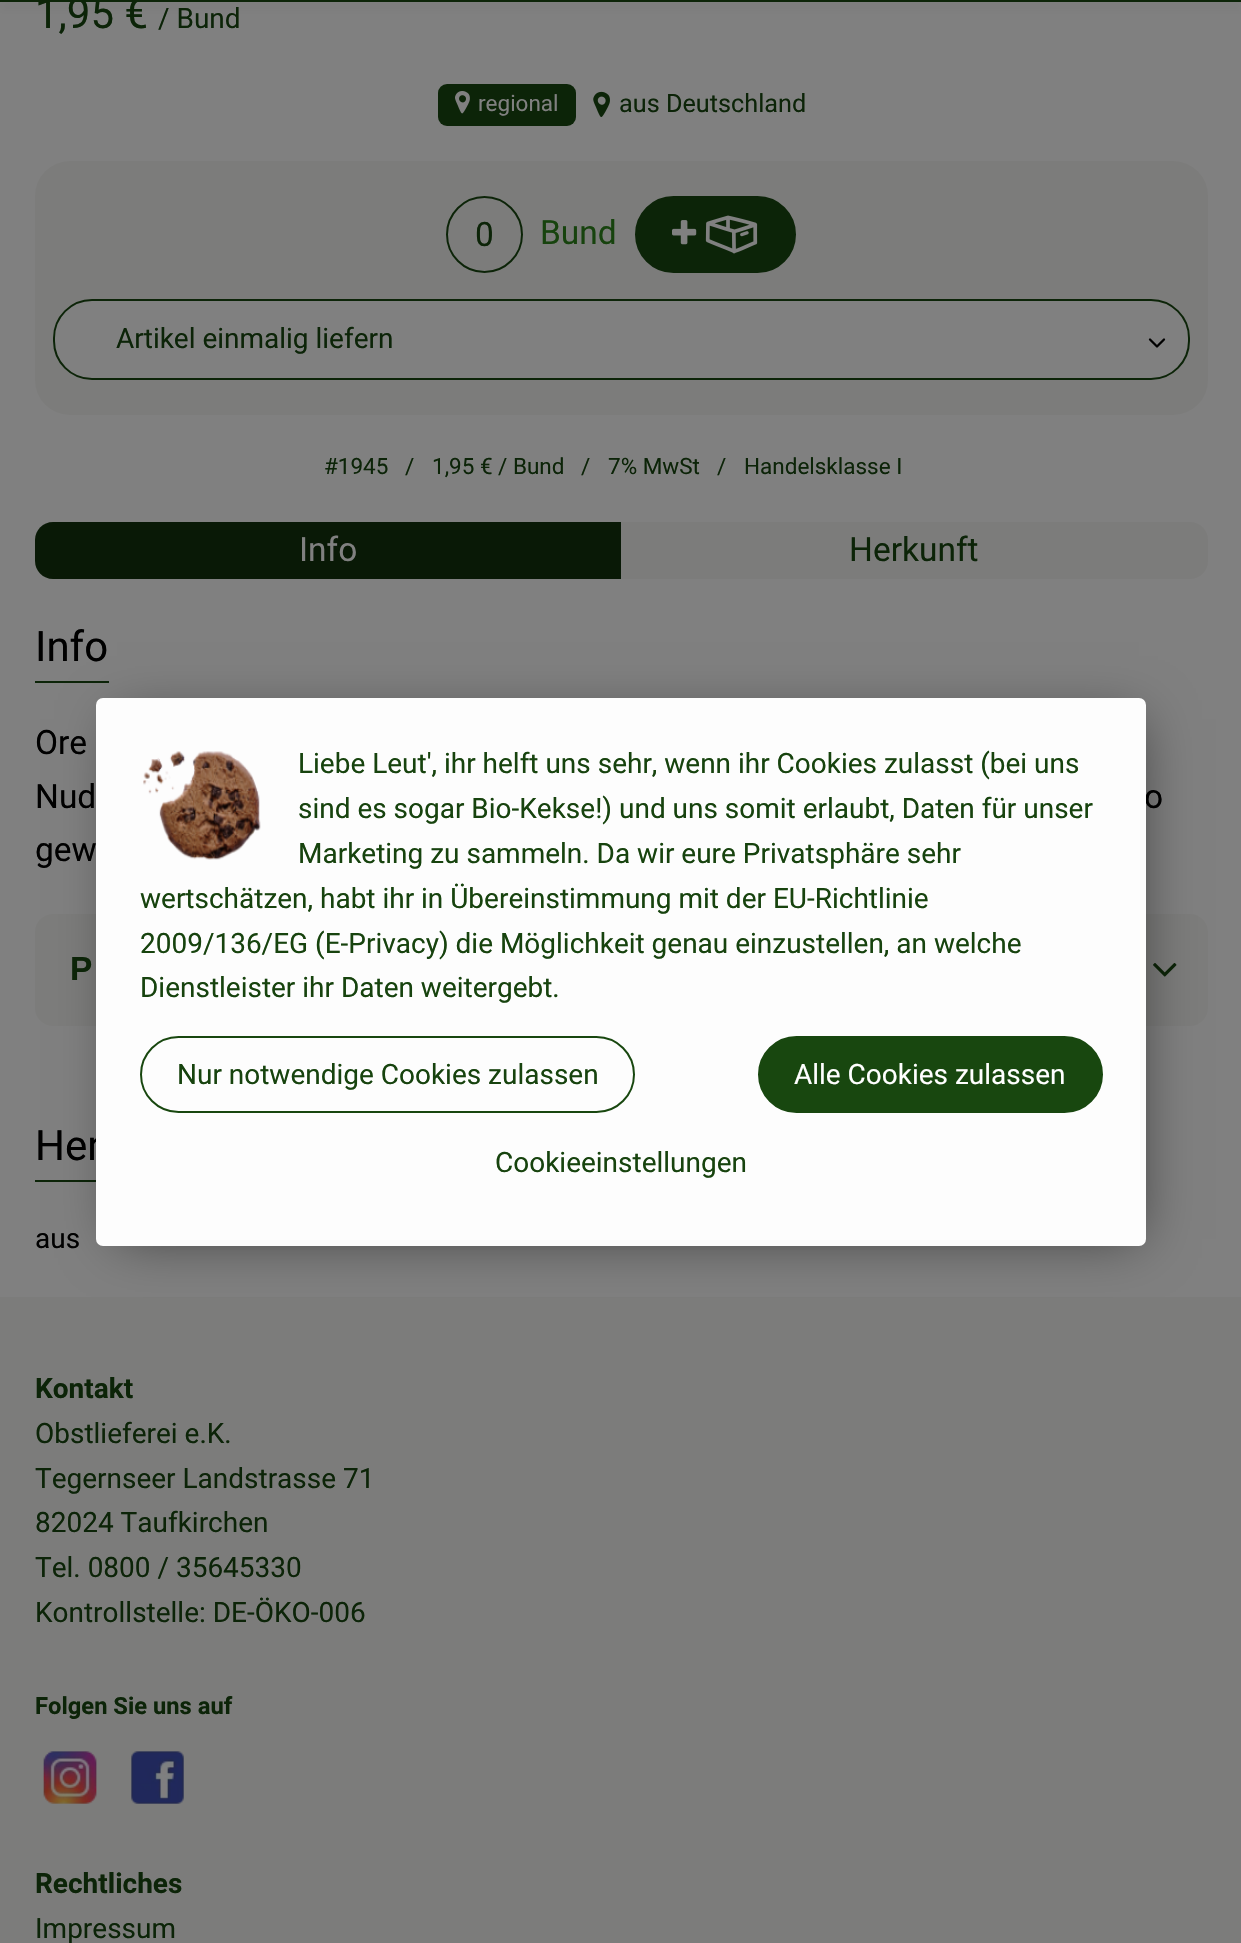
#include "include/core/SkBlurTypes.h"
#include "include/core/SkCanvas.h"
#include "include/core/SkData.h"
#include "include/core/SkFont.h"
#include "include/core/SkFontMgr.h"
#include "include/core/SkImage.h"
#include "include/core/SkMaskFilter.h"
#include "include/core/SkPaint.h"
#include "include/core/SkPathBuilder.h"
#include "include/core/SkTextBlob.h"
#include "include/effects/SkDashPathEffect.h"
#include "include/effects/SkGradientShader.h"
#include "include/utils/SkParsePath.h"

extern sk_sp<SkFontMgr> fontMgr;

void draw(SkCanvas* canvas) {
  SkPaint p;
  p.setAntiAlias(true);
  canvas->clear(SkColorSetRGB(128, 128, 128));
  p.setColor(SkColorSetRGB(111, 111, 111));
  p.setMaskFilter(SkMaskFilter::MakeBlur(kNormal_SkBlurStyle, 4.5f));
  canvas->drawRect(SkRect::MakeLTRB(0, 5, 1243, 7), p);
  p.setMaskFilter(nullptr);
  p.setColor(SkColorSetRGB(12, 36, 8));
  canvas->drawRect(SkRect::MakeLTRB(0, 0, 1241, 2), p);
  canvas->drawRoundRect(SkRect::MakeLTRB(438, 84, 576, 126), 9, 9, p);
  canvas->drawImageRect(SkImages::DeferredFromEncodedData(SkData::MakeFromFileName("images/1.png")), SkRect::MakeLTRB(455, 91, 470, 114), SkSamplingOptions());
  canvas->drawImageRect(SkImages::DeferredFromEncodedData(SkData::MakeFromFileName("images/2.png")), SkRect::MakeLTRB(593, 91, 610, 117), SkSamplingOptions());
  p.setColor(SkColorSetRGB(124, 124, 123));
  canvas->drawRoundRect(SkRect::MakeLTRB(35, 161, 1208, 415), 35, 35, p);
  p.setStyle(SkPaint::kStroke_Style);
  p.setStrokeWidth(2);
  p.setColor(SkColorSetRGB(12, 36, 8));
  canvas->drawCircle(484.5f, 234.5f, 37.5f, p);
  p.setStyle(SkPaint::kFill_Style);
  canvas->drawRoundRect(SkRect::MakeLTRB(636, 197, 795, 272), 37.5f, 37.5f, p);
  p.setStyle(SkPaint::kStroke_Style);
  canvas->drawRoundRect(SkRect::MakeLTRB(636, 197, 795, 272), 37.5f, 37.5f, p);
  canvas->drawImageRect(SkImages::DeferredFromEncodedData(SkData::MakeFromFileName("images/3.png")), SkRect::MakeLTRB(672, 220, 697, 245), SkSamplingOptions());
  canvas->drawImageRect(SkImages::DeferredFromEncodedData(SkData::MakeFromFileName("images/4.png")), SkRect::MakeLTRB(705, 215, 758, 254), SkSamplingOptions());
  p.setStyle(SkPaint::kFill_Style);
  p.setColor(SkColorSetRGB(128, 128, 128));
  canvas->drawRoundRect(SkRect::MakeLTRB(54, 300, 1189, 379), 38, 38, p);
  p.setStyle(SkPaint::kStroke_Style);
  p.setColor(SkColorSetRGB(12, 36, 8));
  canvas->drawRoundRect(SkRect::MakeLTRB(54, 300, 1189, 379), 38, 38, p);
  p.setStrokeWidth(2.3f);
  p.setStrokeCap(SkPaint::kRound_Cap);
  p.setStrokeJoin(SkPaint::kRound_Join);
  p.setColor(SK_ColorBLACK);
  canvas->drawPath(SkPathBuilder().moveTo(1150, 339.5f).lineTo(1157, 346.5f).lineTo(1164, 339.5f).detach(), p);
  p.setStyle(SkPaint::kFill_Style);
  p.setColor(SkColorSetRGB(9, 25, 6));
  canvas->drawPath(SkPathBuilder().moveTo(53, 522).lineTo(621, 522).lineTo(621, 579).lineTo(53, 579).cubicTo(43, 579, 35, 571, 35, 561).lineTo(35, 540).cubicTo(35, 530, 43, 522, 53, 522).close().detach(), p);
  p.setColor(SkColorSetRGB(124, 124, 123));
  canvas->drawPath(SkPathBuilder().moveTo(621, 522).lineTo(1190, 522).cubicTo(1200, 522, 1208, 530, 1208, 540).lineTo(1208, 561).cubicTo(1208, 571, 1200, 579, 1190, 579).lineTo(621, 579).close().detach(), p);
  p.setColor(SkColorSetRGB(12, 36, 8));
  canvas->drawRect(SkRect::MakeLTRB(35, 681, 109, 683), p);
  p.setColor(SkColorSetRGB(124, 124, 123));
  canvas->drawRoundRect(SkRect::MakeLTRB(35, 914, 1208, 1026), 18, 18, p);
  canvas->drawImageRect(SkImages::DeferredFromEncodedData(SkData::MakeFromFileName("images/5.png")), SkRect::MakeLTRB(1153, 963, 1177, 977), SkSamplingOptions());
  p.setColor(SkColorSetRGB(12, 36, 8));
  canvas->drawRect(SkRect::MakeLTRB(35, 1180, 96, 1182), p);
  p.setColor(SkColorSetRGB(124, 124, 123));
  canvas->drawRect(SkRect::MakeLTRB(0, 1297, 1241, 1943), p);
  canvas->drawImageRect(SkImages::DeferredFromEncodedData(SkData::MakeFromFileName("images/6.png")), SkRect::MakeLTRB(43, 1751, 97, 1804), SkSamplingOptions());
  canvas->drawImageRect(SkImages::DeferredFromEncodedData(SkData::MakeFromFileName("images/7.png")), SkRect::MakeLTRB(131, 1751, 184, 1804), SkSamplingOptions());
  p.setColor(SkColorSetARGB(128, 0, 0, 0));
  p.setMaskFilter(SkMaskFilter::MakeBlur(kNormal_SkBlurStyle, 26));
  canvas->drawRect(SkRect::MakeLTRB(117, 719, 1139, 1239), p);
  p.setMaskFilter(nullptr);
  SkFont font1(fontMgr->matchFamilyStyle("Roboto", SkFontStyle::Normal()), 42);
  font1.setSubpixel(true);
  p.setColor(SkColorSetRGB(12, 36, 8));
  canvas->drawString("1,95 €", 35, 28, font1, p);
  SkFont font2(fontMgr->matchFamilyStyle("Roboto", SkFontStyle::Normal()), 28);
  font2.setSubpixel(true);
  canvas->drawString("/ Bund", 158, 28, font2, p);
  SkFont font3(fontMgr->matchFamilyStyle("Roboto", SkFontStyle::Normal()), 22.5f);
  font3.setSubpixel(true);
  p.setColor(SkColorSetRGB(128, 128, 128));
  canvas->drawString("regional", 478, 111, font3, p);
  SkFont font4(fontMgr->matchFamilyStyle("Roboto", SkFontStyle::Normal()), 25.25f);
  font4.setSubpixel(true);
  p.setColor(SkColorSetRGB(12, 36, 8));
  canvas->drawString("aus Deutschland", 619, 112, font4, p);
  SkFont font5(fontMgr->matchFamilyStyle("Roboto", SkFontStyle::Normal()), 33.5f);
  font5.setSubpixel(true);
  canvas->drawString("0", 475, 246, font5, p);
  p.setColor(SkColorSetRGB(23, 67, 14));
  canvas->drawString("Bund", 540, 244, font5, p);
  p.setColor(SkColorSetRGB(12, 36, 8));
  canvas->drawString("Artikel einmalig liefern", 116, 348, font2, p);
  canvas->drawString("#1945", 324, 474, font3, p);
  canvas->drawString("/", 405, 474, font3, p);
  canvas->drawString("1,95 € / Bund", 432, 474, font3, p);
  canvas->drawString("/", 581, 474, font3, p);
  canvas->drawString("7% MwSt", 608, 474, font3, p);
  canvas->drawString("/", 717, 474, font3, p);
  canvas->drawString("Handelsklasse I", 744, 474, font3, p);
  p.setColor(SkColorSetRGB(128, 128, 128));
  canvas->drawString("Info", 299, 561, font5, p);
  p.setColor(SkColorSetRGB(12, 36, 8));
  canvas->drawString("Herkunft", 849, 561, font5, p);
  p.setColor(SK_ColorBLACK);
  canvas->drawString("Info", 35, 661, font1, p);
  canvas->drawString("Ore", 35, 754, font5, p);
  canvas->drawString("Nud", 35, 808, font5, p);
  canvas->drawString("o", 1144, 808, font5, p);
  canvas->drawString("gew", 35, 861, font5, p);
  SkFont font6(fontMgr->matchFamilyStyle("Liberation Sans", SkFontStyle::Bold()), 33.5f);
  font6.setSubpixel(true);
  p.setColor(SkColorSetRGB(12, 36, 8));
  canvas->drawString("P", 70, 980, font6, p);
  p.setColor(SK_ColorBLACK);
  canvas->drawString("Her", 35, 1160, font1, p);
  canvas->drawString("aus", 35, 1248, font2, p);
  SkFont font7(fontMgr->matchFamilyStyle("Roboto", SkFontStyle::Bold()), 28);
  font7.setSubpixel(true);
  p.setColor(SkColorSetRGB(12, 36, 8));
  canvas->drawString("Kontakt", 35, 1398, font7, p);
  canvas->drawString("Obstlieferei e.K.", 35, 1443, font2, p);
  canvas->drawString("Tegernseer Landstrasse 71", 35, 1488, font2, p);
  canvas->drawString("82024 Taufkirchen", 35, 1532, font2, p);
  canvas->drawString("Tel. 0800 / 35645330", 35, 1577, font2, p);
  canvas->drawString("Kontrollstelle: DE-ÖKO-006", 35, 1622, font2, p);
  SkFont font8(fontMgr->matchFamilyStyle("Roboto", SkFontStyle::Bold()), 23.75f);
  font8.setSubpixel(true);
  canvas->drawString("Folgen Sie uns auf", 35, 1714, font8, p);
  canvas->drawString("Rechtliches", 35, 1893, font7, p);
  canvas->drawString("Impressum", 35, 1938, font2, p);
  p.setColor(SkColorSetRGB(253, 253, 253));
  canvas->drawRoundRect(SkRect::MakeLTRB(96, 698, 1146, 1246), 7, 7, p);
  canvas->drawImageRect(SkImages::DeferredFromEncodedData(SkData::MakeFromFileName("images/8.png")), SkRect::MakeLTRB(143, 751, 261, 860), SkSamplingOptions());
  p.setColor(SkColorSetRGB(23, 67, 14));
  canvas->drawString("Liebe Leut', ihr helft uns sehr, wenn ihr Cookies zulasst (bei uns", 298, 773, font2, p);
  canvas->drawString("sind es sogar Bio-Kekse!) und uns somit erlaubt, Daten für unser", 298, 818, font2, p);
  canvas->drawString("Marketing zu sammeln. Da wir eure Privatsphäre sehr", 298, 863, font2, p);
  canvas->drawString("wertschätzen, habt ihr in Übereinstimmung mit der EU-Richtlinie", 140, 908, font2, p);
  canvas->drawString("2009/136/EG (E-Privacy) die Möglichkeit genau einzustellen, an welche", 140, 953, font2, p);
  canvas->drawString("Dienstleister ihr Daten weitergebt.", 140, 997, font2, p);
  p.setStyle(SkPaint::kStroke_Style);
  p.setStrokeWidth(2);
  p.setStrokeCap(SkPaint::kButt_Cap);
  p.setStrokeJoin(SkPaint::kMiter_Join);
  p.setColor(SkColorSetRGB(24, 71, 15));
  canvas->drawRoundRect(SkRect::MakeLTRB(141, 1037, 634, 1112), 37.5f, 37.5f, p);
  p.setStyle(SkPaint::kFill_Style);
  p.setColor(SkColorSetRGB(23, 67, 14));
  canvas->drawString("Nur notwendige Cookies zulassen", 177, 1084, font2, p);
  p.setColor(SkColorSetRGB(24, 71, 15));
  canvas->drawRoundRect(SkRect::MakeLTRB(759, 1037, 1102, 1112), 37.5f, 37.5f, p);
  p.setStyle(SkPaint::kStroke_Style);
  canvas->drawRoundRect(SkRect::MakeLTRB(759, 1037, 1102, 1112), 37.5f, 37.5f, p);
  p.setStyle(SkPaint::kFill_Style);
  p.setColor(SK_ColorWHITE);
  canvas->drawString("Alle Cookies zulassen", 794, 1084, font2, p);
  p.setColor(SkColorSetRGB(23, 67, 14));
  canvas->drawString("Cookieeinstellungen", 495, 1172, font2, p);
}
